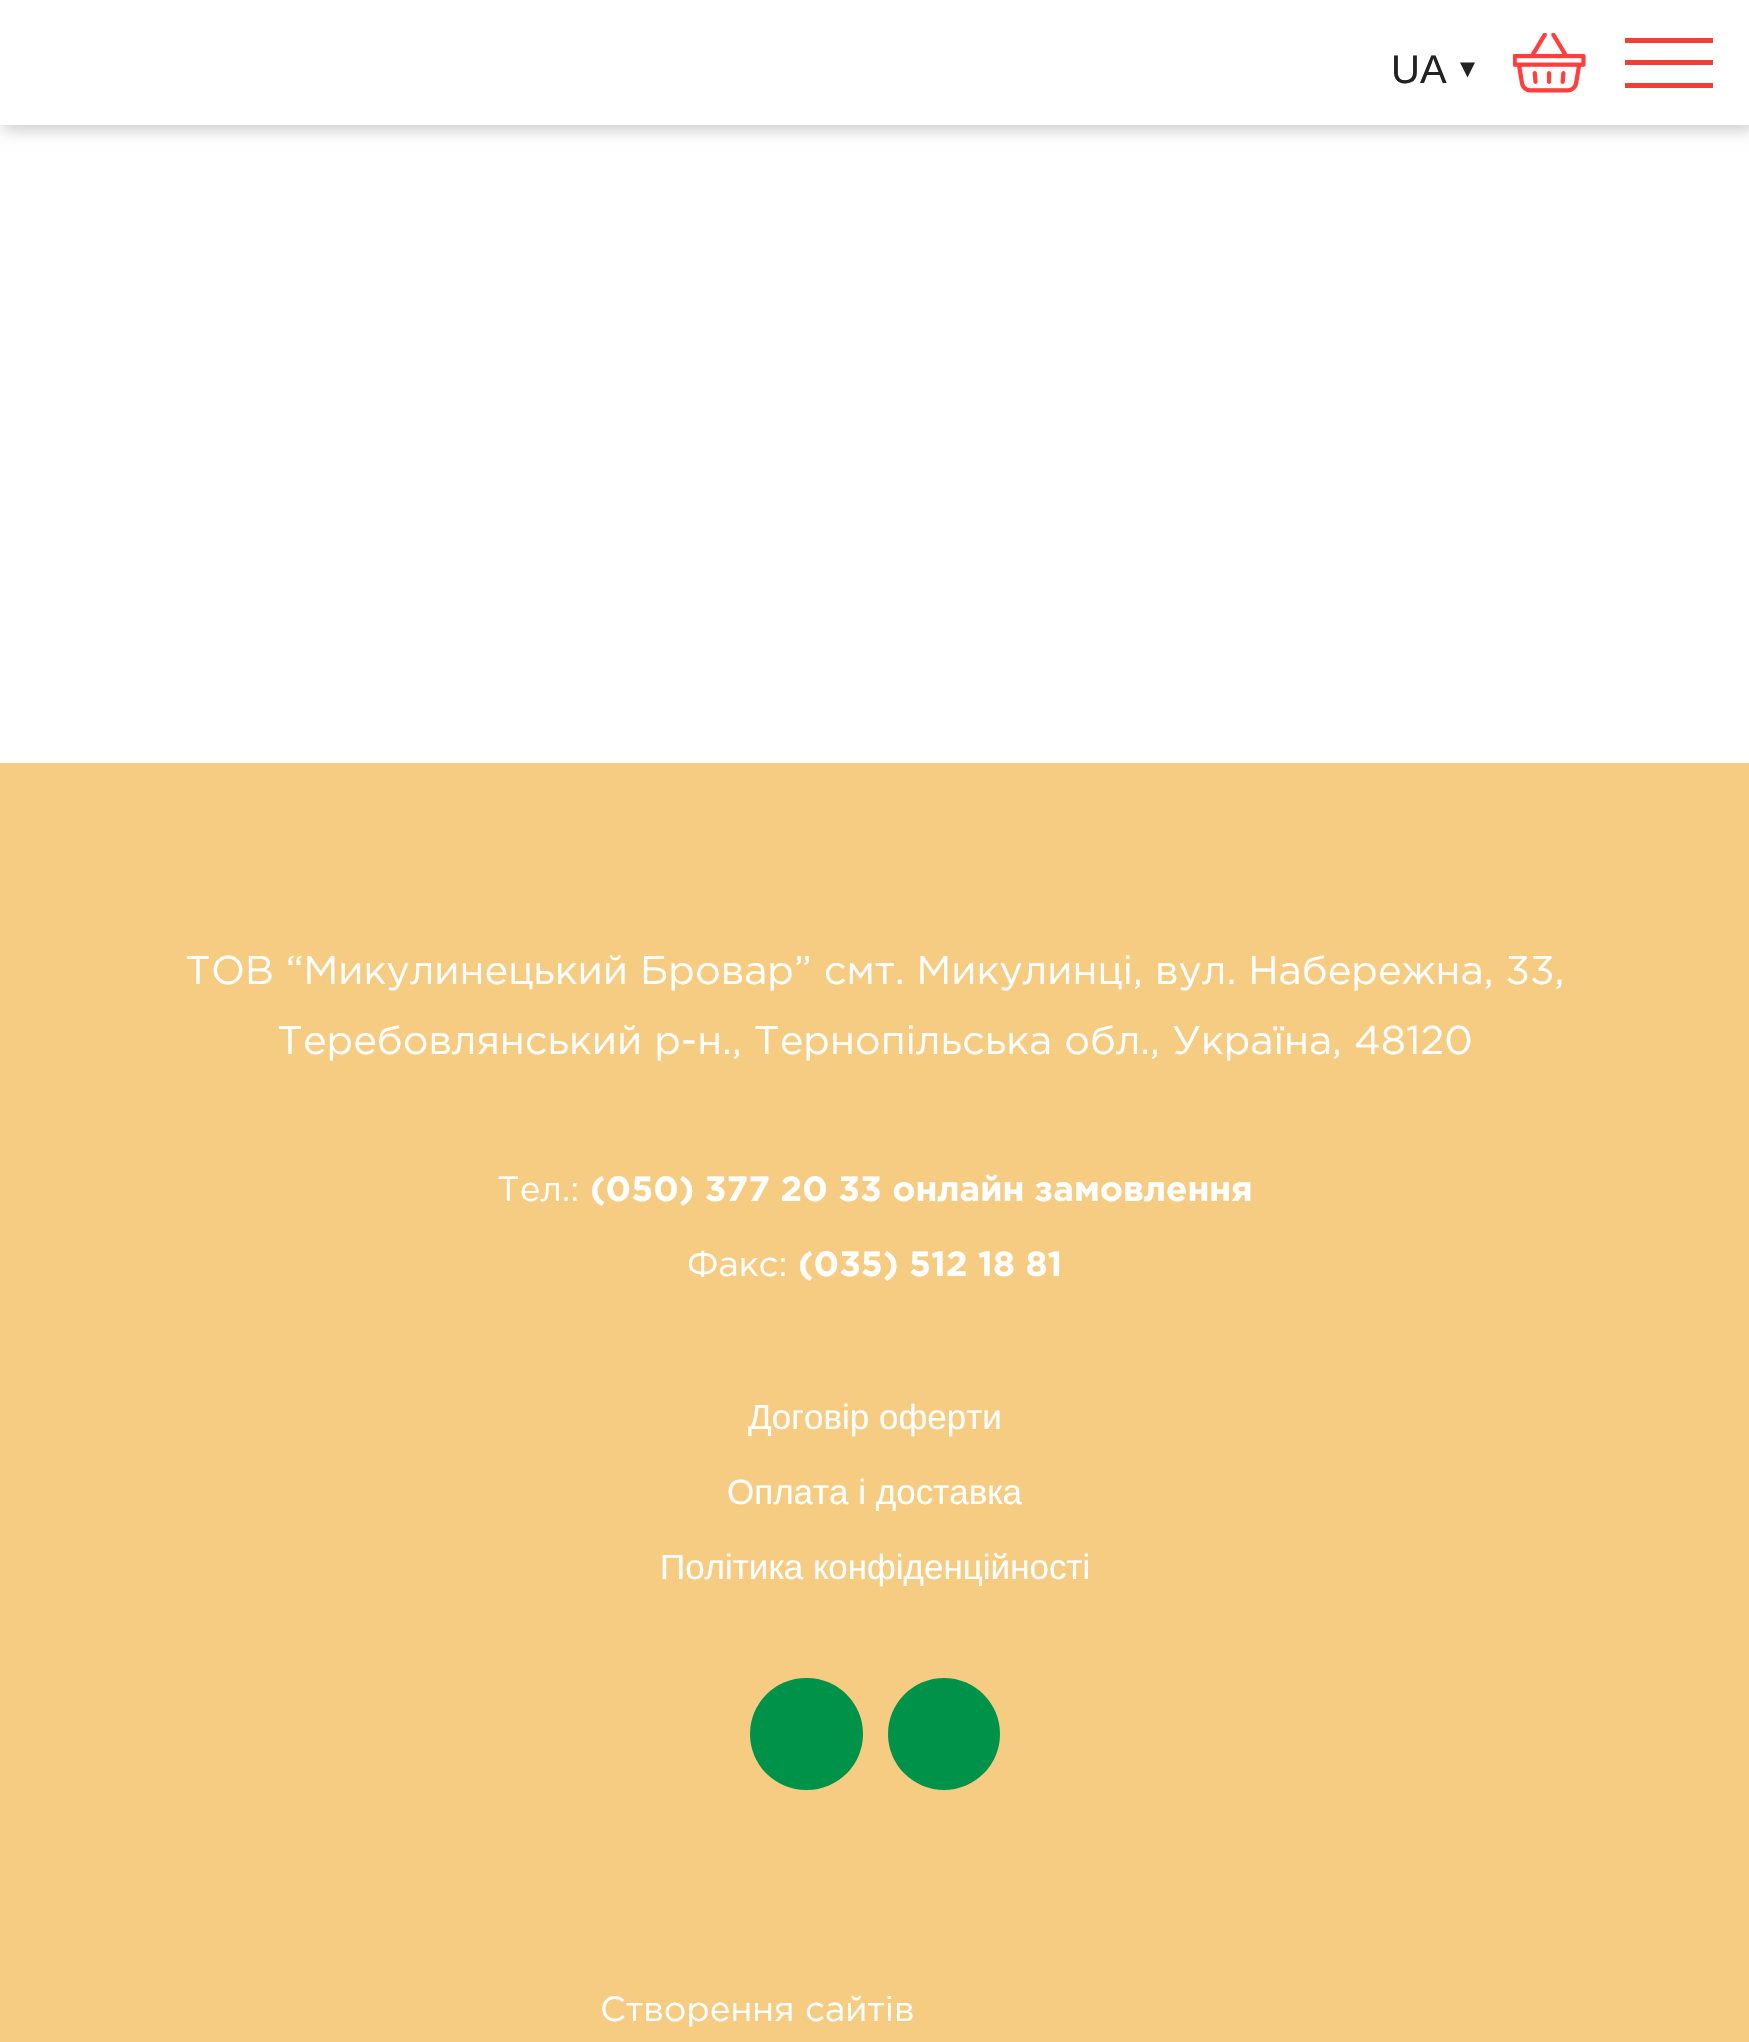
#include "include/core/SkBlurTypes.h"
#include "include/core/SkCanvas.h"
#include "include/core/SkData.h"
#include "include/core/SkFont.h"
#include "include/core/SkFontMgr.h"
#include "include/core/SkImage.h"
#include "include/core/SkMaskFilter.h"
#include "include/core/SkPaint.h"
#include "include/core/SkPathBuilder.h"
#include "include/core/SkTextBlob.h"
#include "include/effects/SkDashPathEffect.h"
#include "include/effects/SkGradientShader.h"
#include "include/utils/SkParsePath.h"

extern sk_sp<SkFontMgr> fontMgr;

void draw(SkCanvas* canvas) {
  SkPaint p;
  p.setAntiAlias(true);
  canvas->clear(SK_ColorWHITE);
  p.setColor(SkColorSetARGB(51, 0, 0, 0));
  p.setMaskFilter(SkMaskFilter::MakeBlur(kNormal_SkBlurStyle, 7.5f));
  canvas->drawRect(SkRect::MakeLTRB(3, 5, 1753, 130), p);
  p.setMaskFilter(nullptr);
  p.setColor(SK_ColorWHITE);
  canvas->drawRect(SkRect::MakeLTRB(0, 0, 1749, 125), p);
  p.setColor(SkColorSetRGB(34, 34, 34));
  canvas->drawPath(SkPathBuilder().moveTo(1460, 62.5f).lineTo(1475, 62.5f).lineTo(1467.5f, 77.5f).close().detach(), p);
  canvas->drawImageRect(SkImages::DeferredFromEncodedData(SkData::MakeFromFileName("images/1.png")), SkRect::MakeLTRB(1513, 33, 1586, 93), SkSamplingOptions());
  p.setColor(SkColorSetRGB(239, 64, 53));
  canvas->drawRect(SkRect::MakeLTRB(1625, 38, 1713, 43), p);
  canvas->drawRect(SkRect::MakeLTRB(1625, 60, 1713, 65), p);
  canvas->drawRect(SkRect::MakeLTRB(1625, 83, 1713, 88), p);
  p.setColor(SkColorSetRGB(245, 204, 129));
  canvas->drawRect(SkRect::MakeLTRB(0, 763, 1749, 2042), p);
  p.setColor(SkColorSetRGB(0, 146, 73));
  canvas->drawRoundRect(SkRect::MakeLTRB(750, 1678, 863, 1790), 56, 56, p);
  canvas->drawCircle(944, 1734, 56, p);
  SkFont font1(fontMgr->matchFamilyStyle("Liberation Sans", SkFontStyle::Normal()), 40);
  font1.setSubpixel(true);
  p.setColor(SkColorSetRGB(34, 34, 34));
  canvas->drawString("UA", 1391, 83, font1, p);
  SkFont font2(fontMgr->matchFamilyStyle("Gotham", SkFontStyle::Normal()), 40);
  font2.setSubpixel(true);
  p.setColor(SK_ColorWHITE);
  canvas->drawString("ТОВ “Микулинецький Бровар” смт. Микулинці, вул. Набережна, 33,", 185, 984, font2, p);
  canvas->drawString("Теребовлянський р-н., Тернопільська обл., Україна, 48120", 277, 1054, font2, p);
  SkFont font3(fontMgr->matchFamilyStyle("Gotham", SkFontStyle::Normal()), 35);
  font3.setSubpixel(true);
  canvas->drawString("Тел.:", 497, 1201, font3, p);
  SkFont font4(fontMgr->matchFamilyStyle("Gotham", SkFontStyle::Bold()), 35);
  font4.setSubpixel(true);
  canvas->drawString("(050) 377 20 33 онлайн замовлення", 590, 1201, font4, p);
  canvas->drawString("Факс:", 687, 1276, font3, p);
  canvas->drawString("(035) 512 18 81", 798, 1276, font4, p);
  SkFont font5(fontMgr->matchFamilyStyle("Liberation Sans", SkFontStyle::Normal()), 35);
  font5.setSubpixel(true);
  canvas->drawString("Договір оферти", 748, 1429, font5, p);
  canvas->drawString("Оплата і доставка", 727, 1504, font5, p);
  canvas->drawString("Політика конфіденційності", 660, 1579, font5, p);
  canvas->drawString("Створення сайтів", 600, 2021, font3, p);
}
